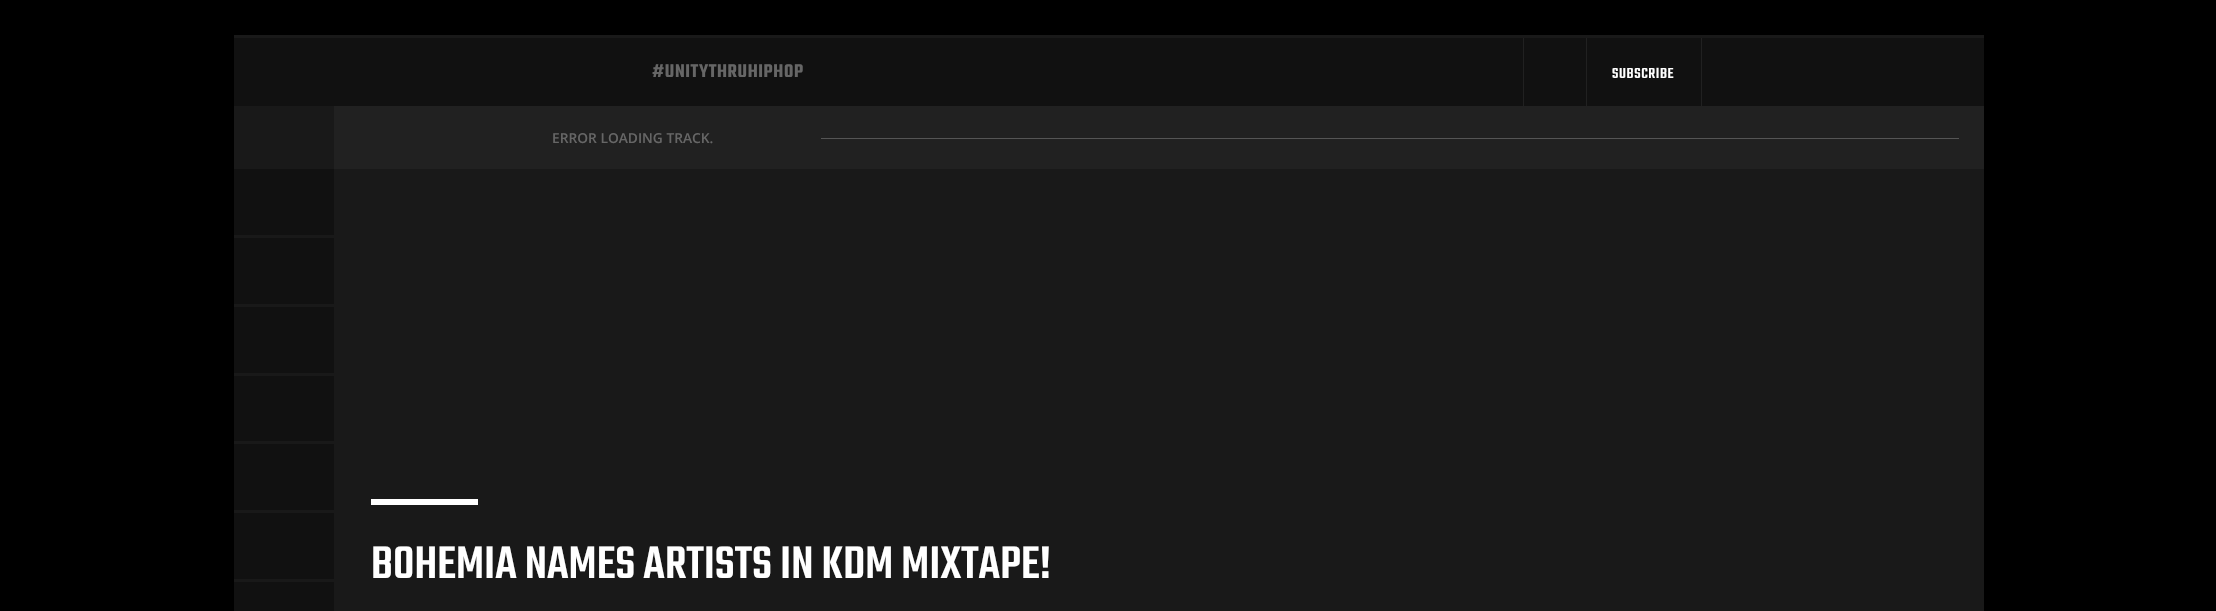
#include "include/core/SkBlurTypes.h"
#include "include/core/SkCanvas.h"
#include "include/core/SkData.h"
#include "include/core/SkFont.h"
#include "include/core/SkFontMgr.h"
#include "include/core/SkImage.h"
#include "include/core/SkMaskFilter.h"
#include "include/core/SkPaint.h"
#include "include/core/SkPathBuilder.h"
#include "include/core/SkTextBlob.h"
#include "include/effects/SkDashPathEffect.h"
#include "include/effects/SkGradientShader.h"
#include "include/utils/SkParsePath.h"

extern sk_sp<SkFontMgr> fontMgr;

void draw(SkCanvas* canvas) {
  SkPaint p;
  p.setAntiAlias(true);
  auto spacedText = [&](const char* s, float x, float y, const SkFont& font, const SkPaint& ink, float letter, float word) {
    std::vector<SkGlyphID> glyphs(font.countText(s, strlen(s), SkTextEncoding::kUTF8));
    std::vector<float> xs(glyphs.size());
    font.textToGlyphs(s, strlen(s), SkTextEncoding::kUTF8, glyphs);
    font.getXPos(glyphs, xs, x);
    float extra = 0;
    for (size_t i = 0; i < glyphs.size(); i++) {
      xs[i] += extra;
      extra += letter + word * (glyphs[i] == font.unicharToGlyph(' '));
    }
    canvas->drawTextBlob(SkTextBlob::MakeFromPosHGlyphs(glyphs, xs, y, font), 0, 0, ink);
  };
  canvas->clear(SK_ColorBLACK);
  p.setColor(SkColorSetRGB(25, 25, 25));
  canvas->drawRect(SkRect::MakeLTRB(234, 35, 1984, 611), p);
  p.setColor(SkColorSetRGB(17, 17, 17));
  canvas->drawRect(SkRect::MakeLTRB(234, 38, 1984, 106), p);
  p.setColor(SkColorSetRGB(33, 33, 33));
  canvas->drawRect(SkRect::MakeLTRB(1523, 38, 1524, 106), p);
  canvas->drawRect(SkRect::MakeLTRB(1586, 38, 1587, 106), p);
  canvas->drawRect(SkRect::MakeLTRB(1701, 38, 1702, 106), p);
  canvas->drawRect(SkRect::MakeLTRB(334, 106, 1984, 169), p);
  p.setColor(SkColorSetRGB(85, 85, 85));
  canvas->drawRect(SkRect::MakeLTRB(821, 138, 1959, 139), p);
  p.setColor(SkColorSetRGB(17, 17, 17));
  canvas->drawRect(SkRect::MakeLTRB(234, 169, 334, 611), p);
  p.setColor(SkColorSetRGB(25, 25, 25));
  canvas->drawRect(SkRect::MakeLTRB(234, 235, 334, 238), p);
  canvas->drawRect(SkRect::MakeLTRB(234, 304, 334, 307), p);
  canvas->drawRect(SkRect::MakeLTRB(234, 373, 334, 376), p);
  canvas->drawRect(SkRect::MakeLTRB(234, 441, 334, 444), p);
  canvas->drawRect(SkRect::MakeLTRB(234, 510, 334, 513), p);
  canvas->drawRect(SkRect::MakeLTRB(234, 579, 334, 582), p);
  p.setColor(SK_ColorWHITE);
  canvas->drawRect(SkRect::MakeLTRB(371, 499, 478, 505), p);
  SkFont font1(fontMgr->matchFamilyStyle("Teko", SkFontStyle(600, SkFontStyle::kNormal_Width, SkFontStyle::kUpright_Slant)), 20);
  font1.setSubpixel(true);
  p.setColor(SkColorSetRGB(102, 102, 102));
  spacedText("#UNITYTHRUHIPHOP", 652, 77, font1, p, 0.6f, 0);
  SkFont font2(fontMgr->matchFamilyStyle("Teko", SkFontStyle(500, SkFontStyle::kNormal_Width, SkFontStyle::kUpright_Slant)), 16);
  font2.setSubpixel(true);
  p.setColor(SK_ColorWHITE);
  spacedText("SUBSCRIBE", 1612, 78, font2, p, 0.6f, 0);
  SkFont font3(fontMgr->matchFamilyStyle("Open Sans", SkFontStyle(600, SkFontStyle::kNormal_Width, SkFontStyle::kUpright_Slant)), 13.75f);
  font3.setSubpixel(true);
  p.setColor(SkColorSetRGB(102, 102, 102));
  canvas->drawString("ERROR LOADING TRACK.", 552, 143, font3, p);
  SkFont font4(fontMgr->matchFamilyStyle("Teko", SkFontStyle(500, SkFontStyle::kNormal_Width, SkFontStyle::kUpright_Slant)), 50);
  font4.setSubpixel(true);
  p.setColor(SK_ColorWHITE);
  canvas->drawString("BOHEMIA NAMES ARTISTS IN KDM MIXTAPE!", 371, 578, font4, p);
}
